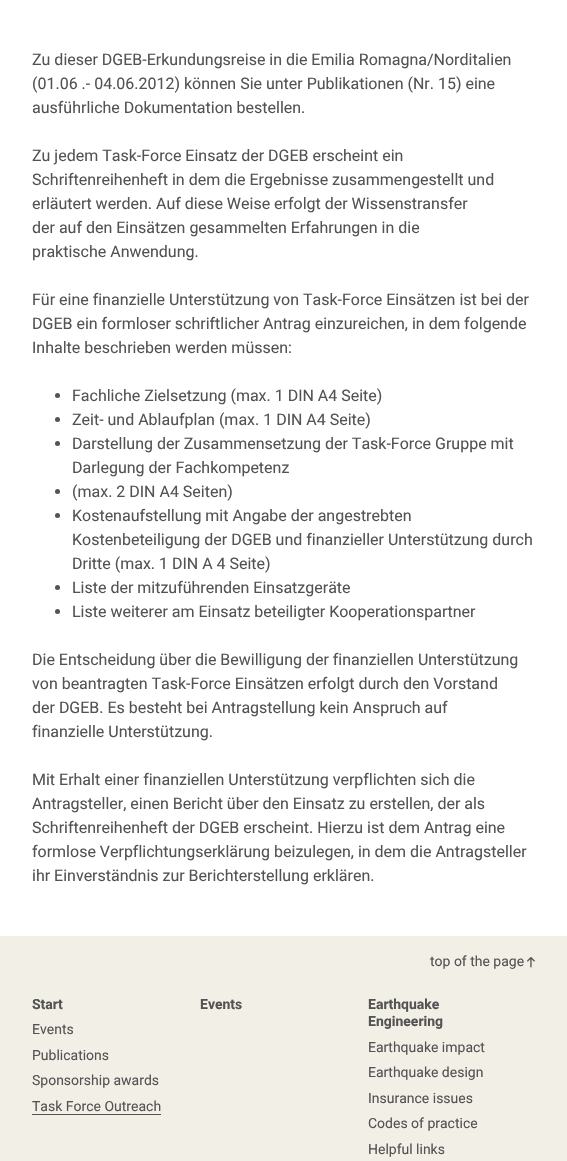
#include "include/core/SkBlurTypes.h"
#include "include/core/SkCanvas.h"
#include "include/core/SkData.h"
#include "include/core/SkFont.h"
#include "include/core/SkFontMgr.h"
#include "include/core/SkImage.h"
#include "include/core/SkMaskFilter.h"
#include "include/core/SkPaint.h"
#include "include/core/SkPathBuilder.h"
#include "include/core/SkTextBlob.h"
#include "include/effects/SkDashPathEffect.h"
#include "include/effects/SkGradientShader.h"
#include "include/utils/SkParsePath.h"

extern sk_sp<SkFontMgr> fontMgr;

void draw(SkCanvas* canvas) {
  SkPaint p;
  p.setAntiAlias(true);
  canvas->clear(SK_ColorWHITE);
  p.setColor(SkColorSetRGB(83, 83, 83));
  canvas->drawCircle(57.5f, 395.5f, 2.5f, p);
  canvas->drawCircle(57.5f, 419.5f, 2.5f, p);
  canvas->drawCircle(57.5f, 443.5f, 2.5f, p);
  canvas->drawCircle(57.5f, 491.5f, 2.5f, p);
  canvas->drawCircle(57.5f, 515.5f, 2.5f, p);
  canvas->drawCircle(57.5f, 587.5f, 2.5f, p);
  canvas->drawCircle(57.5f, 611.5f, 2.5f, p);
  p.setColor(SkColorSetRGB(242, 239, 231));
  canvas->drawRect(SkRect::MakeLTRB(0, 936, 567, 1161), p);
  canvas->drawImageRect(SkImages::DeferredFromEncodedData(SkData::MakeFromFileName("images/1.png")), SkRect::MakeLTRB(527, 957, 535, 968), SkSamplingOptions());
  p.setColor(SkColorSetRGB(83, 83, 83));
  canvas->drawRect(SkRect::MakeLTRB(32, 1114, 161, 1115), p);
  SkFont font1(fontMgr->matchFamilyStyle("Roboto", SkFontStyle::Normal()), 16);
  font1.setSubpixel(true);
  canvas->drawString("Zu dieser DGEB-Erkundungsreise in die Emilia Romagna/Norditalien", 32, 65, font1, p);
  canvas->drawString("(01.06 .- 04.06.2012) können Sie unter Publikationen (Nr. 15) eine", 32, 89, font1, p);
  canvas->drawString("ausführliche Dokumentation bestellen.", 32, 113, font1, p);
  canvas->drawString("Zu jedem Task-Force Einsatz der DGEB erscheint ein", 32, 161, font1, p);
  canvas->drawString("Schriftenreihenheft in dem die Ergebnisse zusammengestellt und", 32, 185, font1, p);
  canvas->drawString("erläutert werden. Auf diese Weise erfolgt der Wissenstransfer", 32, 209, font1, p);
  canvas->drawString("der auf den Einsätzen gesammelten Erfahrungen in die", 32, 233, font1, p);
  canvas->drawString("praktische Anwendung.", 32, 257, font1, p);
  canvas->drawString("Für eine finanzielle Unterstützung von Task-Force Einsätzen ist bei der", 32, 305, font1, p);
  canvas->drawString("DGEB ein formloser schriftlicher Antrag einzureichen, in dem folgende", 32, 329, font1, p);
  canvas->drawString("Inhalte beschrieben werden müssen:", 32, 353, font1, p);
  canvas->drawString("Fachliche Zielsetzung (max. 1 DIN A4 Seite)", 72, 401, font1, p);
  canvas->drawString("Zeit- und Ablaufplan (max. 1 DIN A4 Seite)", 72, 425, font1, p);
  canvas->drawString("Darstellung der Zusammensetzung der Task-Force Gruppe mit", 72, 449, font1, p);
  canvas->drawString("Darlegung der Fachkompetenz", 72, 473, font1, p);
  canvas->drawString("(max. 2 DIN A4 Seiten)", 72, 497, font1, p);
  canvas->drawString("Kostenaufstellung mit Angabe der angestrebten", 72, 521, font1, p);
  canvas->drawString("Kostenbeteiligung der DGEB und finanzieller Unterstützung durch", 72, 545, font1, p);
  canvas->drawString("Dritte (max. 1 DIN A 4 Seite)", 72, 569, font1, p);
  canvas->drawString("Liste der mitzuführenden Einsatzgeräte", 72, 593, font1, p);
  canvas->drawString("Liste weiterer am Einsatz beteiligter Kooperationspartner", 72, 617, font1, p);
  canvas->drawString("Die Entscheidung über die Bewilligung der finanziellen Unterstützung", 32, 665, font1, p);
  canvas->drawString("von beantragten Task-Force Einsätzen erfolgt durch den Vorstand", 32, 689, font1, p);
  canvas->drawString("der DGEB. Es besteht bei Antragstellung kein Anspruch auf", 32, 713, font1, p);
  canvas->drawString("finanzielle Unterstützung.", 32, 737, font1, p);
  canvas->drawString("Mit Erhalt einer finanziellen Unterstützung verpflichten sich die", 32, 785, font1, p);
  canvas->drawString("Antragsteller, einen Bericht über den Einsatz zu erstellen, der als", 32, 809, font1, p);
  canvas->drawString("Schriftenreihenheft der DGEB erscheint. Hierzu ist dem Antrag eine", 32, 833, font1, p);
  canvas->drawString("formlose Verpflichtungserklärung beizulegen, in dem die Antragsteller", 32, 857, font1, p);
  canvas->drawString("ihr Einverständnis zur Berichterstellung erklären.", 32, 881, font1, p);
  SkFont font2(fontMgr->matchFamilyStyle("Roboto", SkFontStyle::Normal()), 14);
  font2.setSubpixel(true);
  canvas->drawString("top of the page", 430, 966, font2, p);
  SkFont font3(fontMgr->matchFamilyStyle("Roboto", SkFontStyle::Bold()), 14);
  font3.setSubpixel(true);
  canvas->drawString("Start", 32, 1009, font3, p);
  canvas->drawString("Events", 32, 1034, font2, p);
  canvas->drawString("Publications", 32, 1060, font2, p);
  canvas->drawString("Sponsorship awards", 32, 1085, font2, p);
  canvas->drawString("Task Force Outreach", 32, 1111, font2, p);
  canvas->drawString("Events", 200, 1009, font3, p);
  canvas->drawString("Earthquake", 368, 1009, font3, p);
  canvas->drawString("Engineering", 368, 1026, font3, p);
  canvas->drawString("Earthquake impact", 368, 1052, font2, p);
  canvas->drawString("Earthquake design", 368, 1077, font2, p);
  canvas->drawString("Insurance issues", 368, 1103, font2, p);
  canvas->drawString("Codes of practice", 368, 1128, font2, p);
  canvas->drawString("Helpful links", 368, 1154, font2, p);
}
